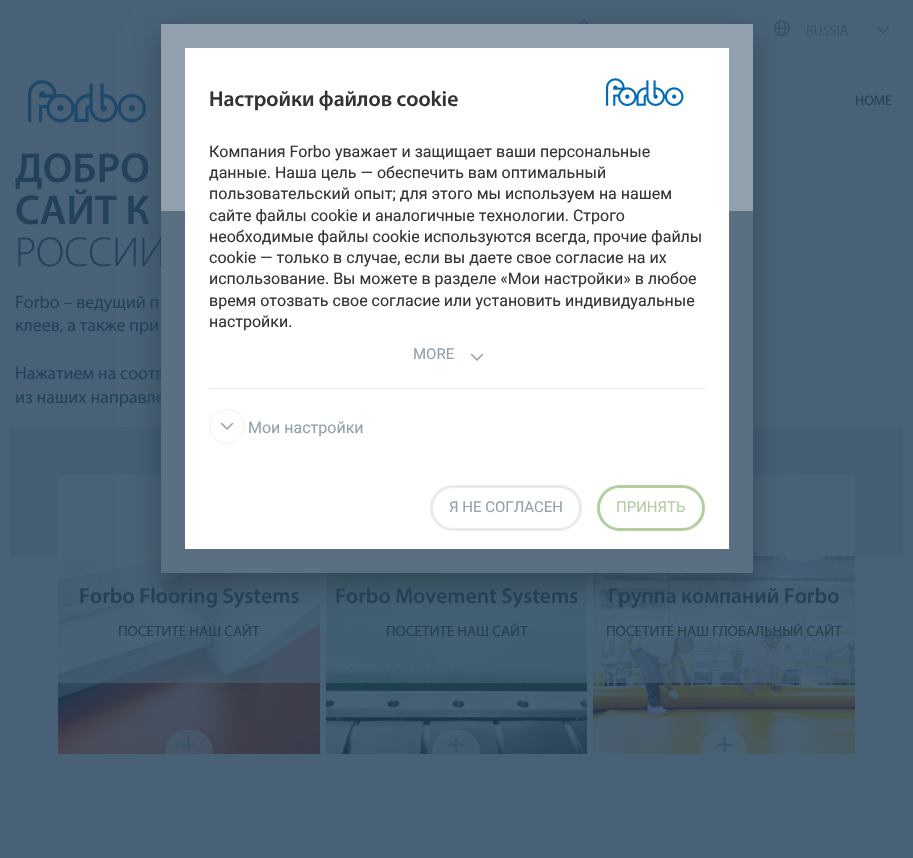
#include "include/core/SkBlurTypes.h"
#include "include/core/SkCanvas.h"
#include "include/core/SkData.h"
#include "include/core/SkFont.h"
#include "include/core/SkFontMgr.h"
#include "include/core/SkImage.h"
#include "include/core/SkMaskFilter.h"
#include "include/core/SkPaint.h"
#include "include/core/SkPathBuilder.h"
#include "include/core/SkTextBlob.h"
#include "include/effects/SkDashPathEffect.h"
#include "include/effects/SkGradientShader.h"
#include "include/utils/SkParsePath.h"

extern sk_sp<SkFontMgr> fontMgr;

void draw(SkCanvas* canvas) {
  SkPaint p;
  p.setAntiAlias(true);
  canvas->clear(SkColorSetRGB(72, 97, 118));
  canvas->drawImageRect(SkImages::DeferredFromEncodedData(SkData::MakeFromFileName("images/1.png")), SkRect::MakeLTRB(579, 19, 589, 24), SkSamplingOptions());
  canvas->drawImageRect(SkImages::DeferredFromEncodedData(SkData::MakeFromFileName("images/2.png")), SkRect::MakeLTRB(773, 20, 791, 37), SkSamplingOptions());
  canvas->drawImageRect(SkImages::DeferredFromEncodedData(SkData::MakeFromFileName("images/3.png")), SkRect::MakeLTRB(876, 26, 890, 34), SkSamplingOptions());
  canvas->drawImageRect(SkImages::DeferredFromEncodedData(SkData::MakeFromFileName("images/4.png")), SkRect::MakeLTRB(28, 80, 146, 123), SkSamplingOptions());
  p.setColor(SkColorSetRGB(67, 93, 114));
  canvas->drawRect(SkRect::MakeLTRB(10, 427, 903, 556), p);
  p.setColor(SkColorSetRGB(72, 97, 118));
  canvas->drawRect(SkRect::MakeLTRB(58, 475, 855, 556), p);
  canvas->drawImageRect(SkImages::DeferredFromEncodedData(SkData::MakeFromFileName("images/5.png")), SkRect::MakeLTRB(58, 556, 320, 754), SkSamplingOptions());
  p.setColor(SkColorSetARGB(153, 72, 97, 118));
  canvas->drawRect(SkRect::MakeLTRB(58, 556, 320, 683), p);
  p.setColor(SkColorSetARGB(128, 72, 97, 118));
  canvas->drawPath(SkPathBuilder().moveTo(189, 730).cubicTo(202.5f, 730, 213, 740.5f, 213, 754).lineTo(165, 754).cubicTo(165, 740.5f, 175.5f, 730, 189, 730).close().detach(), p);
  canvas->drawPath(SkPathBuilder().moveTo(189, 731).cubicTo(202, 731, 212, 741, 213, 754).cubicTo(213, 722, 165, 722, 165, 754).cubicTo(166, 741, 176, 731, 189, 731).close().detach(), p);
  canvas->drawImageRect(SkImages::DeferredFromEncodedData(SkData::MakeFromFileName("images/6.png")), SkRect::MakeLTRB(181, 737, 196, 752), SkSamplingOptions());
  canvas->drawImageRect(SkImages::DeferredFromEncodedData(SkData::MakeFromFileName("images/7.png")), SkRect::MakeLTRB(326, 573, 587, 754), SkSamplingOptions());
  p.setColor(SkColorSetARGB(153, 72, 97, 118));
  canvas->drawRect(SkRect::MakeLTRB(326, 573, 587, 683), p);
  p.setColor(SkColorSetARGB(128, 72, 97, 118));
  canvas->drawPath(SkPathBuilder().moveTo(456, 730).cubicTo(469.5f, 730, 480, 740.5f, 480, 754).lineTo(432, 754).cubicTo(432, 740.5f, 442.5f, 730, 456, 730).close().detach(), p);
  canvas->drawPath(SkPathBuilder().moveTo(456, 731).cubicTo(469, 731, 479, 741, 480, 754).cubicTo(480, 722, 432, 722, 432, 754).cubicTo(433, 741, 443, 731, 456, 731).close().detach(), p);
  canvas->drawImageRect(SkImages::DeferredFromEncodedData(SkData::MakeFromFileName("images/8.png")), SkRect::MakeLTRB(449, 737, 464, 752), SkSamplingOptions());
  canvas->drawImageRect(SkImages::DeferredFromEncodedData(SkData::MakeFromFileName("images/9.png")), SkRect::MakeLTRB(593, 556, 855, 754), SkSamplingOptions());
  p.setColor(SkColorSetARGB(153, 72, 97, 118));
  canvas->drawRect(SkRect::MakeLTRB(593, 556, 855, 683), p);
  p.setColor(SkColorSetARGB(128, 72, 97, 118));
  canvas->drawPath(SkPathBuilder().moveTo(724, 730).cubicTo(737.5f, 730, 748, 740.5f, 748, 754).lineTo(700, 754).cubicTo(700, 740.5f, 710.5f, 730, 724, 730).close().detach(), p);
  canvas->drawPath(SkPathBuilder().moveTo(724, 731).cubicTo(737, 731, 747, 741, 748, 754).cubicTo(748, 722, 700, 722, 700, 754).cubicTo(701, 741, 711, 731, 724, 731).close().detach(), p);
  canvas->drawImageRect(SkImages::DeferredFromEncodedData(SkData::MakeFromFileName("images/10.png")), SkRect::MakeLTRB(717, 737, 732, 752), SkSamplingOptions());
  p.setColor(SkColorSetARGB(71, 2, 2, 3));
  p.setMaskFilter(SkMaskFilter::MakeBlur(kNormal_SkBlurStyle, 15));
  canvas->drawRect(SkRect::MakeLTRB(161, 34, 753, 583), p);
  p.setMaskFilter(nullptr);
  p.setColor(SkColorSetRGB(145, 160, 172));
  canvas->drawRect(SkRect::MakeLTRB(161, 24, 753, 211), p);
  SkFont font1(fontMgr->matchFamilyStyle("Myriad", SkFontStyle::Normal()), 14);
  font1.setSubpixel(true);
  p.setColor(SkColorSetRGB(54, 81, 104));
  canvas->drawString("RUSSIA", 806, 35, font1, p);
  p.setColor(SkColorSetRGB(38, 63, 83));
  canvas->drawString("HOME", 855, 105, font1, p);
  SkFont font2(fontMgr->matchFamilyStyle("Myriad", SkFontStyle(600, SkFontStyle::kNormal_Width, SkFontStyle::kUpright_Slant)), 42);
  font2.setSubpixel(true);
  p.setColor(SkColorSetRGB(35, 65, 90));
  canvas->drawString("ДОБРО", 15, 182, font2, p);
  canvas->drawString("САЙТ К", 15, 224, font2, p);
  SkFont font3(fontMgr->matchFamilyStyle("Myriad", SkFontStyle(300, SkFontStyle::kNormal_Width, SkFontStyle::kUpright_Slant)), 42);
  font3.setSubpixel(true);
  canvas->drawString("РОССИИ", 15, 266, font3, p);
  SkFont font4(fontMgr->matchFamilyStyle("Myriad", SkFontStyle::Normal()), 18);
  font4.setSubpixel(true);
  canvas->drawString("Forbo – ведущий п", 15, 308, font4, p);
  canvas->drawString("клеев, а также при", 15, 331, font4, p);
  canvas->drawString("Нажатием на соотв", 15, 379, font4, p);
  canvas->drawString("из наших направле", 15, 403, font4, p);
  SkFont font5(fontMgr->matchFamilyStyle("Myriad", SkFontStyle(600, SkFontStyle::kNormal_Width, SkFontStyle::kUpright_Slant)), 21.6f);
  font5.setSubpixel(true);
  p.setColor(SkColorSetRGB(38, 63, 83));
  canvas->drawString("Forbo Flooring Systems", 79, 603, font5, p);
  SkFont font6(fontMgr->matchFamilyStyle("Myriad", SkFontStyle::Normal()), 15);
  font6.setSubpixel(true);
  canvas->drawString("ПОСЕТИТЕ НАШ САЙТ", 118, 636, font6, p);
  canvas->drawString("Forbo Movement Systems", 335, 603, font5, p);
  canvas->drawString("ПОСЕТИТЕ НАШ САЙТ", 386, 636, font6, p);
  canvas->drawString("Группа компаний Forbo", 608, 603, font5, p);
  canvas->drawString("ПОСЕТИТЕ НАШ ГЛОБАЛЬНЫЙ САЙТ", 606, 636, font6, p);
  p.setColor(SkColorSetRGB(91, 111, 130));
  canvas->drawRect(SkRect::MakeLTRB(161, 211, 753, 573), p);
  p.setColor(SK_ColorWHITE);
  canvas->drawRect(SkRect::MakeLTRB(185, 48, 729, 549), p);
  canvas->drawImageRect(SkImages::DeferredFromEncodedData(SkData::MakeFromFileName("images/11.png")), SkRect::MakeLTRB(606, 78, 684, 106), SkSamplingOptions());
  p.setColor(SkColorSetRGB(51, 51, 51));
  canvas->drawString("Настройки файлов cookie", 209, 106, font5, p);
  SkFont font7(fontMgr->matchFamilyStyle("Roboto", SkFontStyle::Normal()), 16);
  font7.setSubpixel(true);
  canvas->drawString("Компания Forbo уважает и защищает ваши персональные", 209, 157, font7, p);
  canvas->drawString("данные. Наша цель — обеспечить вам оптимальный", 209, 178, font7, p);
  canvas->drawString("пользовательский опыт; для этого мы используем на нашем", 209, 199, font7, p);
  canvas->drawString("сайте файлы cookie и аналогичные технологии. Строго", 209, 221, font7, p);
  canvas->drawString("необходимые файлы cookie используются всегда, прочие файлы", 209, 242, font7, p);
  canvas->drawString("cookie — только в случае, если вы даете свое согласие на их", 209, 263, font7, p);
  canvas->drawString("использование. Вы можете в разделе «Мои настройки» в любое", 209, 284, font7, p);
  canvas->drawString("время отозвать свое согласие или установить индивидуальные", 209, 306, font7, p);
  canvas->drawString("настройки.", 209, 327, font7, p);
  p.setColor(SkColorSetRGB(230, 230, 230));
  canvas->drawRect(SkRect::MakeLTRB(209, 388, 705, 389), p);
  SkFont font8(fontMgr->matchFamilyStyle("Roboto", SkFontStyle::Normal()), 15);
  font8.setSubpixel(true);
  p.setColor(SkColorSetRGB(145, 160, 172));
  canvas->drawString("MORE", 413, 359, font8, p);
  canvas->drawImageRect(SkImages::DeferredFromEncodedData(SkData::MakeFromFileName("images/12.png")), SkRect::MakeLTRB(470, 353, 484, 361), SkSamplingOptions());
  p.setStyle(SkPaint::kStroke_Style);
  p.setStrokeWidth(1);
  p.setColor(SkColorSetRGB(239, 242, 243));
  canvas->drawRoundRect(SkRect::MakeLTRB(209.5f, 409.5f, 244.5f, 443.5f), 17, 17, p);
  canvas->drawImageRect(SkImages::DeferredFromEncodedData(SkData::MakeFromFileName("images/12.png")), SkRect::MakeLTRB(220, 422, 234, 430), SkSamplingOptions());
  p.setStyle(SkPaint::kFill_Style);
  p.setColor(SkColorSetRGB(145, 160, 172));
  canvas->drawString("Мои настройки", 248, 433, font7, p);
  p.setStyle(SkPaint::kStroke_Style);
  p.setStrokeWidth(3);
  p.setColor(SkColorSetRGB(234, 234, 234));
  canvas->drawRoundRect(SkRect::MakeLTRB(431.5f, 486.5f, 580.5f, 529.5f), 21.5f, 21.5f, p);
  p.setStyle(SkPaint::kFill_Style);
  p.setColor(SkColorSetRGB(145, 160, 172));
  canvas->drawString("Я НЕ СОГЛАСЕН", 449, 512, font8, p);
  p.setStyle(SkPaint::kStroke_Style);
  p.setColor(SkColorSetRGB(179, 206, 159));
  canvas->drawRoundRect(SkRect::MakeLTRB(598.5f, 486.5f, 703.5f, 529.5f), 21.5f, 21.5f, p);
  p.setStyle(SkPaint::kFill_Style);
  canvas->drawString("ПРИНЯТЬ", 616, 512, font8, p);
}
